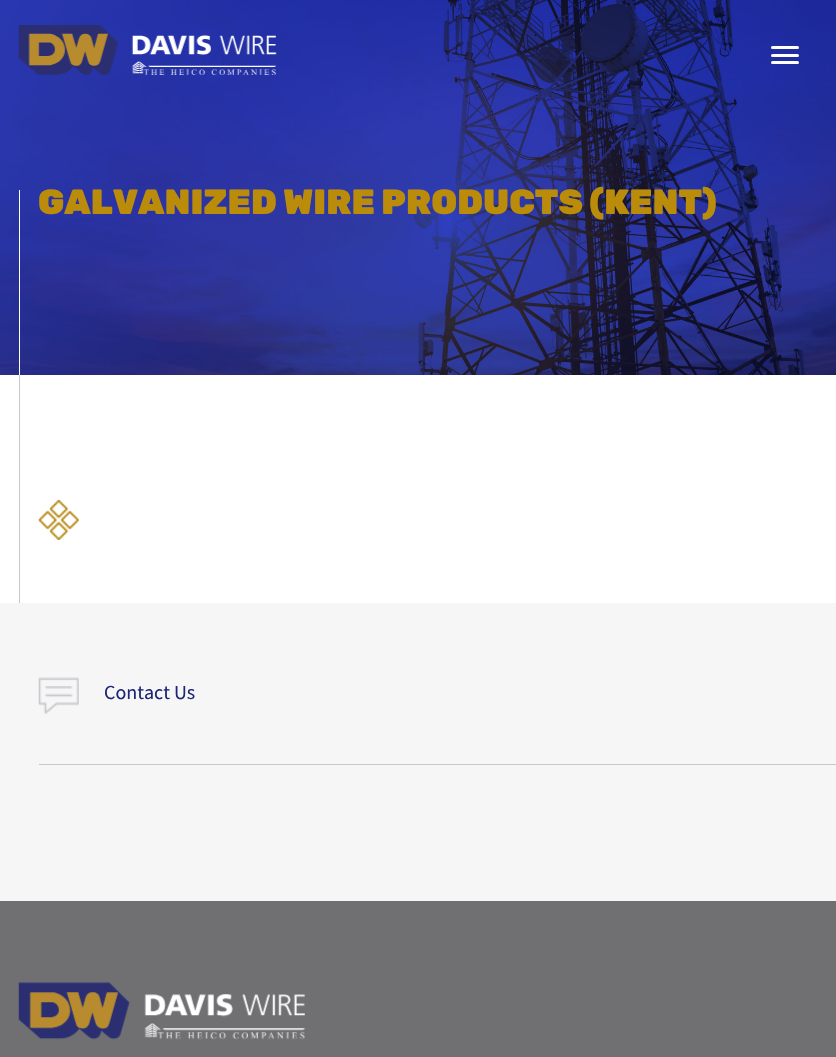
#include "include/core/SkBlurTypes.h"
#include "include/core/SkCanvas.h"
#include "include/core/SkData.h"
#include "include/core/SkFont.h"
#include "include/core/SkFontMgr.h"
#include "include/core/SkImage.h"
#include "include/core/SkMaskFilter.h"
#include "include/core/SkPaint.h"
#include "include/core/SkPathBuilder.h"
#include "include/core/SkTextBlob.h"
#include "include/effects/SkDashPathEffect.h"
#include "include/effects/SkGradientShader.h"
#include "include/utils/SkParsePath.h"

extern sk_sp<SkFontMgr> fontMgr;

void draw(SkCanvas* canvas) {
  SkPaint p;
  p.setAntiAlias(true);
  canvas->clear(SK_ColorWHITE);
  canvas->drawImageRect(SkImages::DeferredFromEncodedData(SkData::MakeFromFileName("images/2.png")), SkRect::MakeLTRB(0, 0, 836, 375), SkSamplingOptions());
  canvas->drawImageRect(SkImages::DeferredFromEncodedData(SkData::MakeFromFileName("images/1.png")), SkRect::MakeLTRB(18, 25, 277, 75), SkSamplingOptions());
  p.setColor(SK_ColorWHITE);
  canvas->drawRoundRect(SkRect::MakeLTRB(771, 46, 799, 49), 1.5f, 1.5f, p);
  canvas->drawRoundRect(SkRect::MakeLTRB(771, 54, 799, 57), 1.5f, 1.5f, p);
  canvas->drawRoundRect(SkRect::MakeLTRB(771, 61, 799, 64), 1.5f, 1.5f, p);
  canvas->drawRect(SkRect::MakeLTRB(19, 190, 20, 375), p);
  p.setColor(SkColorSetRGB(198, 198, 204));
  canvas->drawRect(SkRect::MakeLTRB(19, 375, 20, 603), p);
  canvas->drawImageRect(SkImages::DeferredFromEncodedData(SkData::MakeFromFileName("images/3.png")), SkRect::MakeLTRB(38, 500, 79, 540), SkSamplingOptions());
  p.setColor(SkColorSetRGB(246, 246, 246));
  canvas->drawRect(SkRect::MakeLTRB(0, 603, 836, 901), p);
  canvas->drawImageRect(SkImages::DeferredFromEncodedData(SkData::MakeFromFileName("images/4.png")), SkRect::MakeLTRB(38, 677, 79, 714), SkSamplingOptions());
  p.setColor(SkColorSetRGB(198, 198, 204));
  canvas->drawRect(SkRect::MakeLTRB(39, 764, 836, 765), p);
  p.setColor(SkColorSetRGB(112, 112, 115));
  canvas->drawRect(SkRect::MakeLTRB(0, 901, 836, 1057), p);
  canvas->drawImageRect(SkImages::DeferredFromEncodedData(SkData::MakeFromFileName("images/5.png")), SkRect::MakeLTRB(18, 982, 305, 1040), SkSamplingOptions());
  SkFont font1(fontMgr->matchFamilyStyle("Rubik", SkFontStyle(900, SkFontStyle::kNormal_Width, SkFontStyle::kUpright_Slant)), 35);
  font1.setSubpixel(true);
  p.setColor(SkColorSetRGB(187, 140, 10));
  canvas->drawString("GALVANIZED WIRE PRODUCTS (KENT)", 38, 214, font1, p);
  SkFont font2(fontMgr->matchFamilyStyle("Source Sans Pro", SkFontStyle::Normal()), 20);
  font2.setSubpixel(true);
  p.setColor(SkColorSetRGB(28, 38, 116));
  canvas->drawString("Contact Us", 104, 699, font2, p);
}
